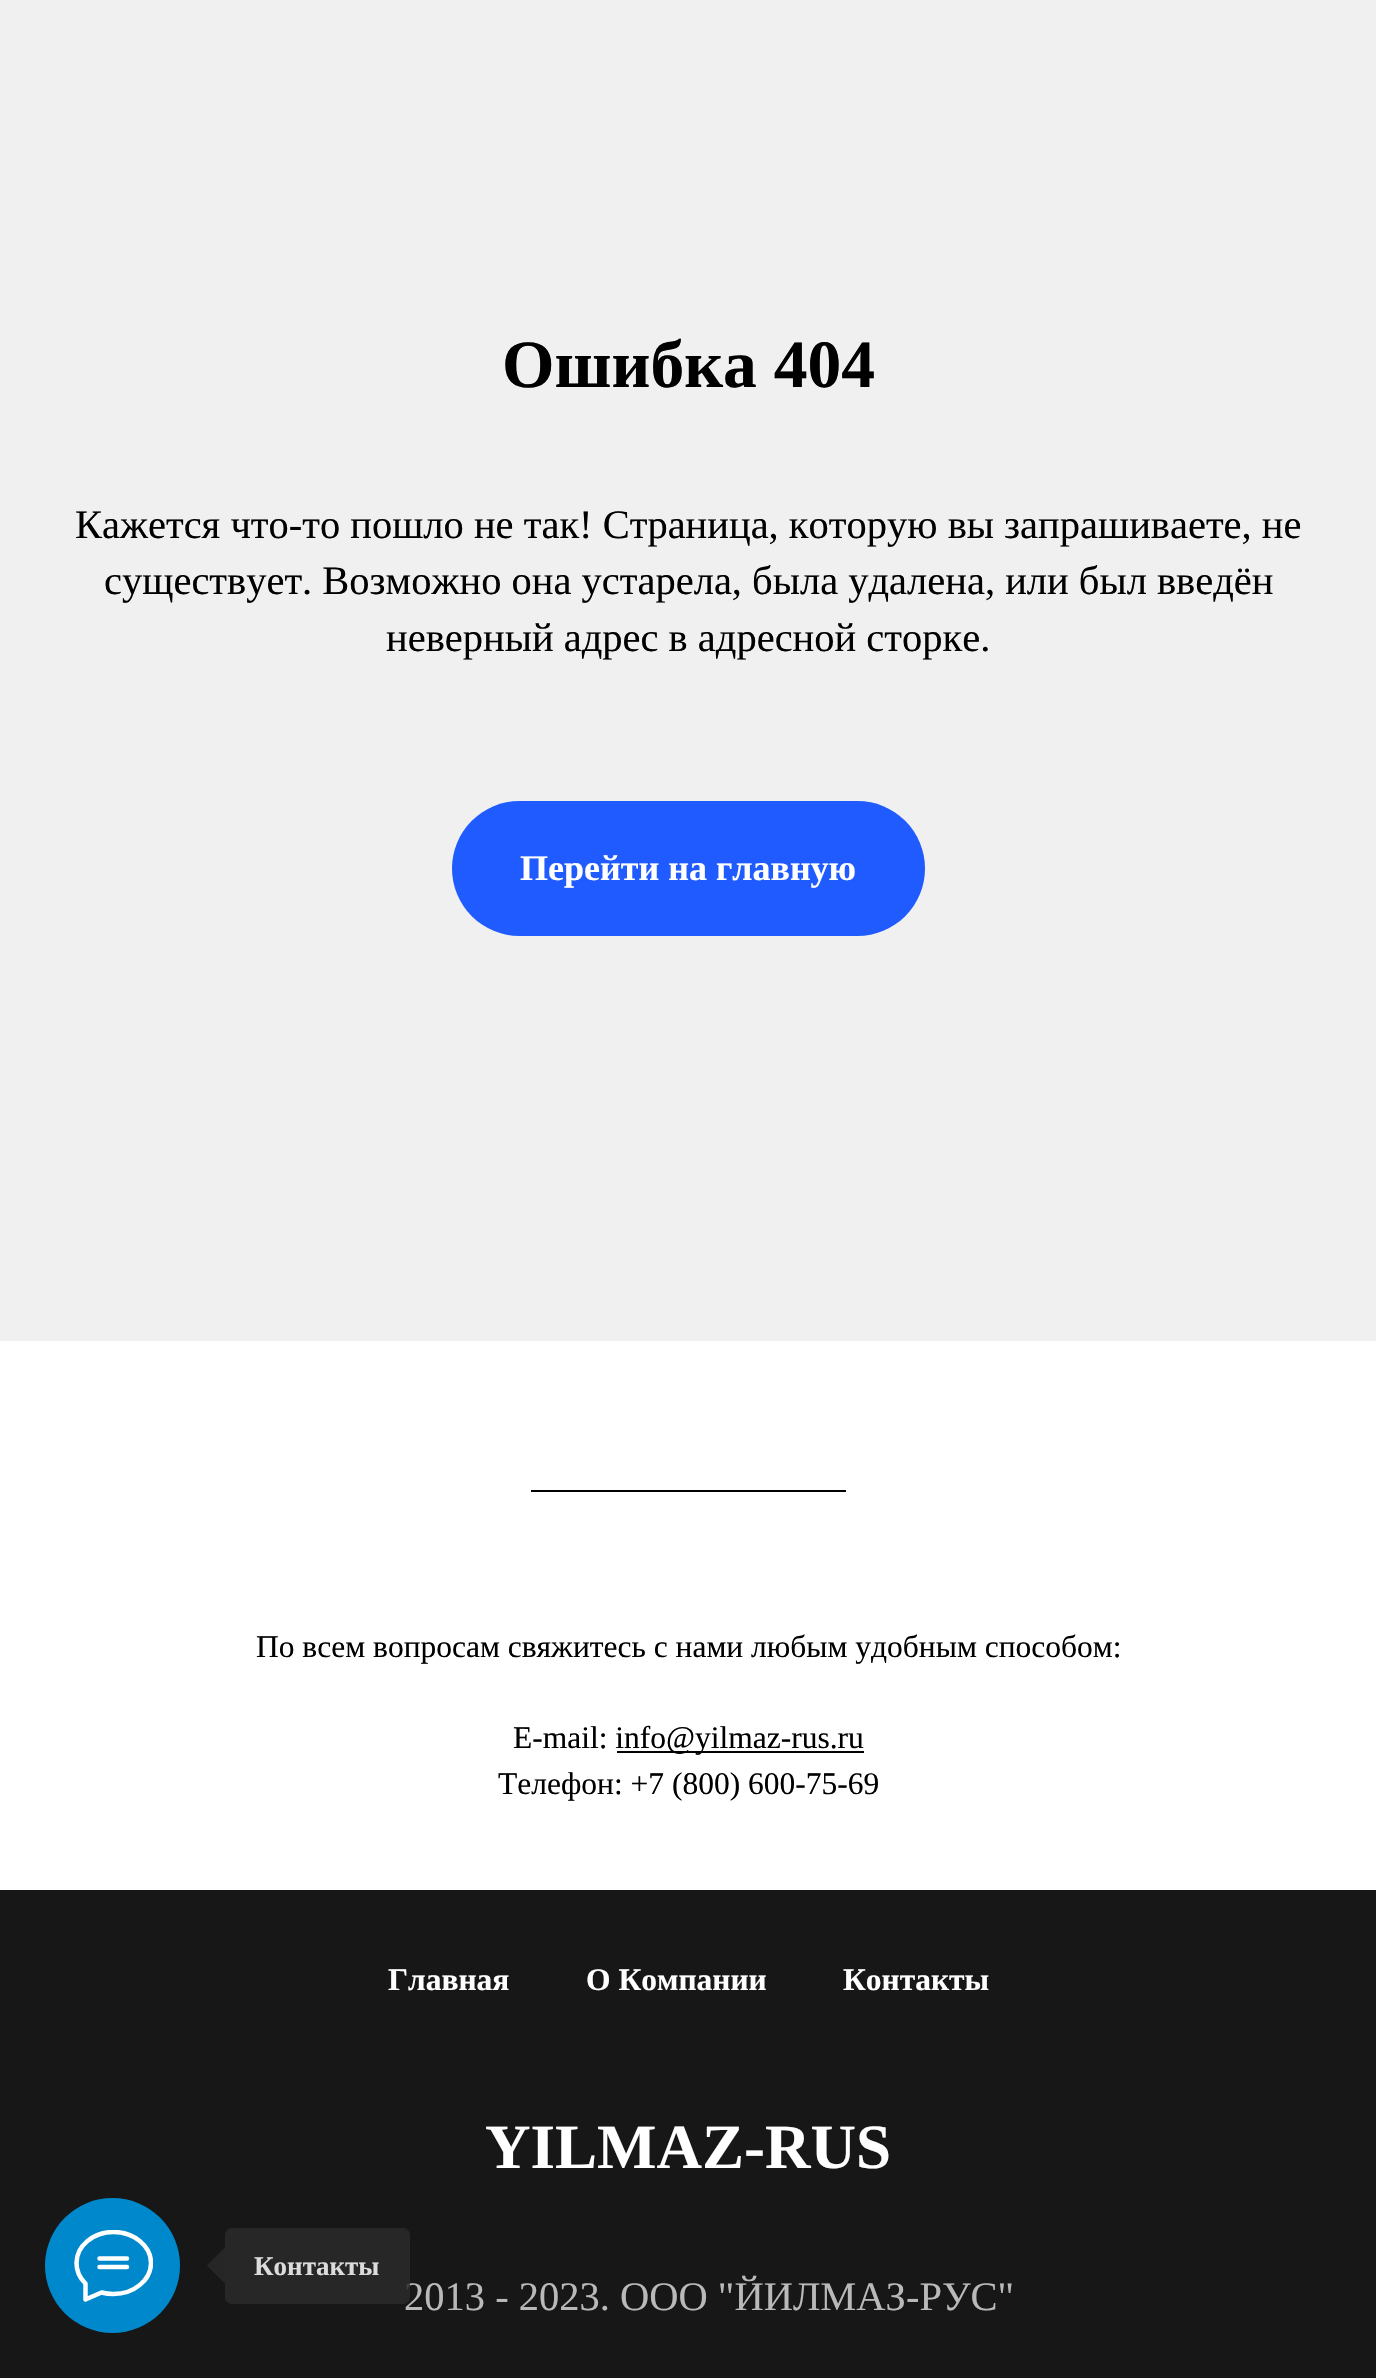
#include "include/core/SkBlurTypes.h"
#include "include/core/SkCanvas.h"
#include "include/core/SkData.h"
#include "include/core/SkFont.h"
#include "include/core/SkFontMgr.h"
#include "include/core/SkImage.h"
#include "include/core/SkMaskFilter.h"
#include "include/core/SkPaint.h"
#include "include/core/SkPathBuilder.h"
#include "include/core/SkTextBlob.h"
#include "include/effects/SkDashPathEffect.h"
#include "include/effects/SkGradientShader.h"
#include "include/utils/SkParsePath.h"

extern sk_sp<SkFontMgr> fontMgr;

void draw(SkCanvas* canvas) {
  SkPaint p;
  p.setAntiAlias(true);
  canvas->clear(SK_ColorWHITE);
  p.setColor(SkColorSetRGB(240, 240, 240));
  canvas->drawRect(SkRect::MakeLTRB(0, 0, 1376, 1341), p);
  p.setColor(SkColorSetRGB(31, 91, 255));
  canvas->drawRoundRect(SkRect::MakeLTRB(452, 801, 925, 936), 67.5f, 67.5f, p);
  p.setColor(SK_ColorBLACK);
  canvas->drawRect(SkRect::MakeLTRB(531, 1490, 846, 1492), p);
  canvas->drawRect(SkRect::MakeLTRB(617, 1751, 864, 1753), p);
  p.setColor(SkColorSetRGB(23, 23, 23));
  canvas->drawRect(SkRect::MakeLTRB(0, 1890, 1376, 2378), p);
  p.setColor(SkColorSetRGB(0, 136, 204));
  canvas->drawCircle(112.5f, 2265.5f, 67.5f, p);
  canvas->save();
  canvas->clipRect(SkRect::MakeLTRB(74, 2230, 153, 2302));
  p.setStyle(SkPaint::kStroke_Style);
  p.setStrokeWidth(4.5f);
  p.setStrokeCap(SkPaint::kRound_Cap);
  p.setStrokeJoin(SkPaint::kRound_Join);
  p.setColor(SK_ColorWHITE);
  canvas->drawPath(SkPathBuilder().moveTo(99.5f, 2258.5f).lineTo(127, 2258.5f).moveTo(99.5f, 2267).lineTo(127, 2267).moveTo(85, 2283).cubicTo(79.5f, 2277.5f, 76.5f, 2270.5f, 76.5f, 2263).cubicTo(76.5f, 2246, 93, 2232, 113.5f, 2232).cubicTo(134, 2232, 151, 2246, 151, 2263).cubicTo(151, 2280, 134, 2294, 113.5f, 2294).cubicTo(109.5f, 2294, 105.5f, 2293.5f, 101.5f, 2292.5f).lineTo(85.5f, 2299.5f).lineTo(85.5f, 2283.5f).close().detach(), p);
  canvas->restore();
  p.setStyle(SkPaint::kFill_Style);
  p.setColor(SkColorSetRGB(38, 38, 38));
  canvas->drawPath(SkPathBuilder().moveTo(225, 2247.5f).lineTo(225, 2283.5f).lineTo(207, 2265.5f).close().detach(), p);
  SkFont font1(fontMgr->matchFamilyStyle("Liberation Serif", SkFontStyle::Bold()), 67.5f);
  font1.setSubpixel(true);
  p.setColor(SK_ColorBLACK);
  canvas->drawString("Ошибка 404", 502, 387, font1, p);
  SkFont font2(fontMgr->matchFamilyStyle("Liberation Serif", SkFontStyle::Normal()), 40.5f);
  font2.setSubpixel(true);
  canvas->drawString("Кажется что-то пошло не так! Страница, которую вы запрашиваете, не", 75, 538, font2, p);
  canvas->drawString("существует. Возможно она устарела, была удалена, или был введён", 104, 594, font2, p);
  canvas->drawString("неверный адрес в адресной сторке.", 386, 651, font2, p);
  SkFont font3(fontMgr->matchFamilyStyle("Liberation Serif", SkFontStyle::Bold()), 36);
  font3.setSubpixel(true);
  p.setColor(SK_ColorWHITE);
  canvas->drawString("Перейти на главную", 520, 880, font3, p);
  SkFont font4(fontMgr->matchFamilyStyle("Liberation Serif", SkFontStyle::Normal()), 31.5f);
  font4.setSubpixel(true);
  p.setColor(SK_ColorBLACK);
  canvas->drawString("По всем вопросам свяжитесь с нами любым удобным способом:", 256, 1657, font4, p);
  canvas->drawString("E-mail: info", 513, 1748, font4, p);
  canvas->drawString("@yilmaz-rus.ru", 666, 1748, font4, p);
  canvas->drawString("Телефон: +7 (800) 600-75-69", 498, 1794, font4, p);
  SkFont font5(fontMgr->matchFamilyStyle("Liberation Serif", SkFontStyle::Bold()), 31.5f);
  font5.setSubpixel(true);
  p.setColor(SK_ColorWHITE);
  canvas->drawString("Главная", 388, 1990, font5, p);
  canvas->drawString("О Компании", 586, 1990, font5, p);
  canvas->drawString("Контакты", 843, 1990, font5, p);
  SkFont font6(fontMgr->matchFamilyStyle("Liberation Serif", SkFontStyle::Bold()), 63);
  font6.setSubpixel(true);
  canvas->drawString("YILMAZ-RUS", 485, 2168, font6, p);
  p.setColor(SkColorSetRGB(185, 185, 185));
  canvas->drawString("2013 - 2023. ООО \"ЙИЛМАЗ-РУС\"", 404, 2310, font2, p);
  p.setColor(SkColorSetARGB(217, 41, 41, 41));
  canvas->drawRoundRect(SkRect::MakeLTRB(225, 2228, 410, 2304), 7, 7, p);
  SkFont font7(fontMgr->matchFamilyStyle("Liberation Serif", SkFontStyle::Bold()), 27);
  font7.setSubpixel(true);
  p.setColor(SkColorSetRGB(220, 220, 220));
  canvas->drawString("Контакты", 254, 2275, font7, p);
}
